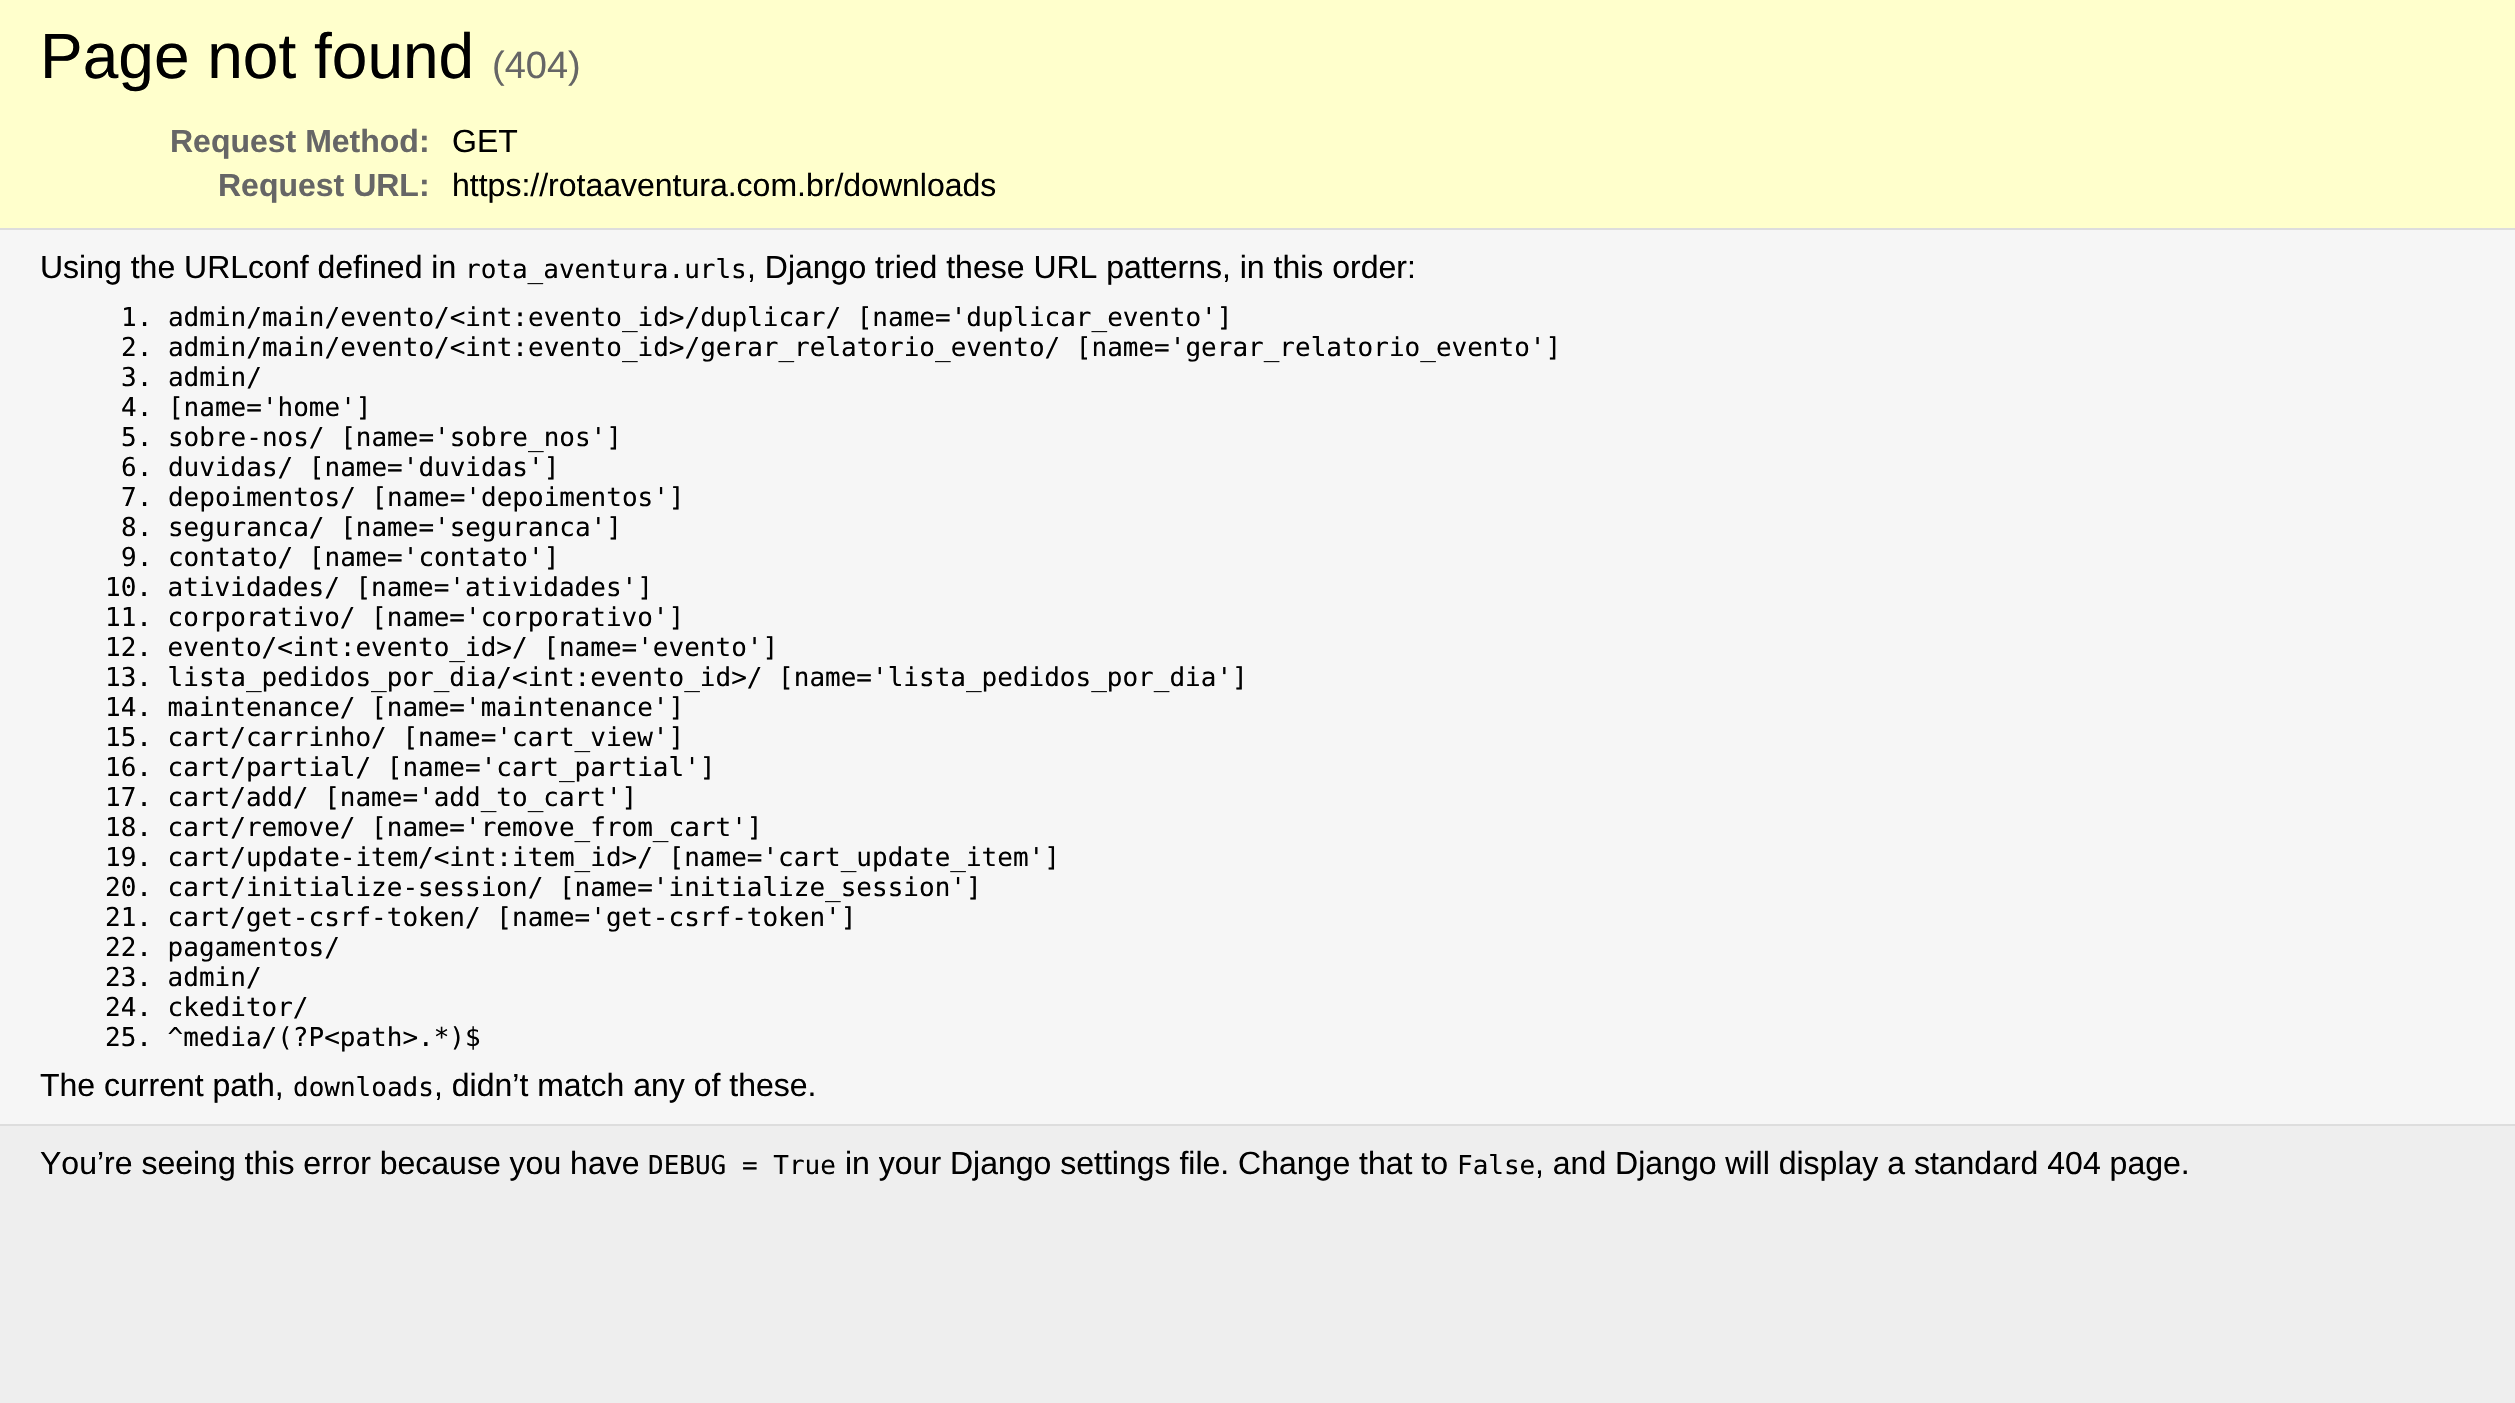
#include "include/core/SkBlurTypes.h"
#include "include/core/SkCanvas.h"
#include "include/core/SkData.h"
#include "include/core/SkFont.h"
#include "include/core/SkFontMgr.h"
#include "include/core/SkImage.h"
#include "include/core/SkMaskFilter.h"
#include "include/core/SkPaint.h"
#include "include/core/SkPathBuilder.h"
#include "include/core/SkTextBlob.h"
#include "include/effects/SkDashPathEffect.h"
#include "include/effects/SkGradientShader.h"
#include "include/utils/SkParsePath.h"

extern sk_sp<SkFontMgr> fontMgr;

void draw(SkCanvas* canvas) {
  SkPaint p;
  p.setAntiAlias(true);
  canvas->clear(SkColorSetRGB(238, 238, 238));
  p.setColor(SkColorSetRGB(255, 255, 204));
  canvas->drawRect(SkRect::MakeLTRB(0, 0, 2515, 228), p);
  p.setColor(SkColorSetRGB(221, 221, 221));
  canvas->drawRect(SkRect::MakeLTRB(0, 228, 2515, 230), p);
  p.setColor(SkColorSetRGB(246, 246, 246));
  canvas->drawRect(SkRect::MakeLTRB(0, 230, 2515, 1124), p);
  p.setColor(SkColorSetRGB(221, 221, 221));
  canvas->drawRect(SkRect::MakeLTRB(0, 1124, 2515, 1126), p);
  SkFont font1(fontMgr->matchFamilyStyle("Liberation Sans", SkFontStyle::Normal()), 64);
  font1.setSubpixel(true);
  p.setColor(SK_ColorBLACK);
  canvas->drawString("Page not found", 40, 78, font1, p);
  SkFont font2(fontMgr->matchFamilyStyle("Liberation Sans", SkFontStyle::Normal()), 38);
  font2.setSubpixel(true);
  p.setColor(SkColorSetRGB(102, 102, 102));
  canvas->drawString("(404)", 492, 78, font2, p);
  SkFont font3(fontMgr->matchFamilyStyle("Liberation Sans", SkFontStyle::Bold()), 32);
  font3.setSubpixel(true);
  canvas->drawString("Request Method:", 170, 152, font3, p);
  SkFont font4(fontMgr->matchFamilyStyle("Liberation Sans", SkFontStyle::Normal()), 32);
  font4.setSubpixel(true);
  p.setColor(SK_ColorBLACK);
  canvas->drawString("GET", 452, 152, font4, p);
  p.setColor(SkColorSetRGB(102, 102, 102));
  canvas->drawString("Request URL:", 218, 196, font3, p);
  p.setColor(SK_ColorBLACK);
  canvas->drawString("https://rotaaventura.com.br/downloads", 452, 196, font4, p);
  canvas->drawString("Using the URLconf defined in", 40, 278, font4, p);
  SkFont font5(fontMgr->matchFamilyStyle("DejaVu Sans Mono", SkFontStyle::Normal()), 26);
  font5.setSubpixel(true);
  canvas->drawString("rota_aventura.urls", 465, 278, font5, p);
  canvas->drawString(", Django tried these URL patterns, in this order:", 747, 278, font4, p);
  canvas->drawString("1. admin/main/evento/<int:evento_id>/duplicar/ [name='duplicar_evento']", 121, 326, font5, p);
  canvas->drawString("2. admin/main/evento/<int:evento_id>/gerar_relatorio_evento/ [name='gerar_relatorio_evento']", 121, 356, font5, p);
  canvas->drawString("3. admin/", 121, 386, font5, p);
  canvas->drawString("4. [name='home']", 121, 416, font5, p);
  canvas->drawString("5. sobre-nos/ [name='sobre_nos']", 121, 446, font5, p);
  canvas->drawString("6. duvidas/ [name='duvidas']", 121, 476, font5, p);
  canvas->drawString("7. depoimentos/ [name='depoimentos']", 121, 506, font5, p);
  canvas->drawString("8. seguranca/ [name='seguranca']", 121, 536, font5, p);
  canvas->drawString("9. contato/ [name='contato']", 121, 566, font5, p);
  canvas->drawString("10. atividades/ [name='atividades']", 105, 596, font5, p);
  canvas->drawString("11. corporativo/ [name='corporativo']", 105, 626, font5, p);
  canvas->drawString("12. evento/<int:evento_id>/ [name='evento']", 105, 656, font5, p);
  canvas->drawString("13. lista_pedidos_por_dia/<int:evento_id>/ [name='lista_pedidos_por_dia']", 105, 686, font5, p);
  canvas->drawString("14. maintenance/ [name='maintenance']", 105, 716, font5, p);
  canvas->drawString("15. cart/carrinho/ [name='cart_view']", 105, 746, font5, p);
  canvas->drawString("16. cart/partial/ [name='cart_partial']", 105, 776, font5, p);
  canvas->drawString("17. cart/add/ [name='add_to_cart']", 105, 806, font5, p);
  canvas->drawString("18. cart/remove/ [name='remove_from_cart']", 105, 836, font5, p);
  canvas->drawString("19. cart/update-item/<int:item_id>/ [name='cart_update_item']", 105, 866, font5, p);
  canvas->drawString("20. cart/initialize-session/ [name='initialize_session']", 105, 896, font5, p);
  canvas->drawString("21. cart/get-csrf-token/ [name='get-csrf-token']", 105, 926, font5, p);
  canvas->drawString("22. pagamentos/", 105, 956, font5, p);
  canvas->drawString("23. admin/", 105, 986, font5, p);
  canvas->drawString("24. ckeditor/", 105, 1016, font5, p);
  canvas->drawString("25. ^media/(?P<path>.*)$", 105, 1046, font5, p);
  canvas->drawString("The current path,", 40, 1096, font4, p);
  canvas->drawString("downloads", 293, 1096, font5, p);
  canvas->drawString(", didn’t match any of these.", 434, 1096, font4, p);
  canvas->drawString("You’re seeing this error because you have", 40, 1174, font4, p);
  canvas->drawString("DEBUG = True", 648, 1174, font5, p);
  canvas->drawString("in your Django settings file. Change that to", 845, 1174, font4, p);
  canvas->drawString("False", 1457, 1174, font5, p);
  canvas->drawString(", and Django will display a standard 404 page.", 1535, 1174, font4, p);
}
